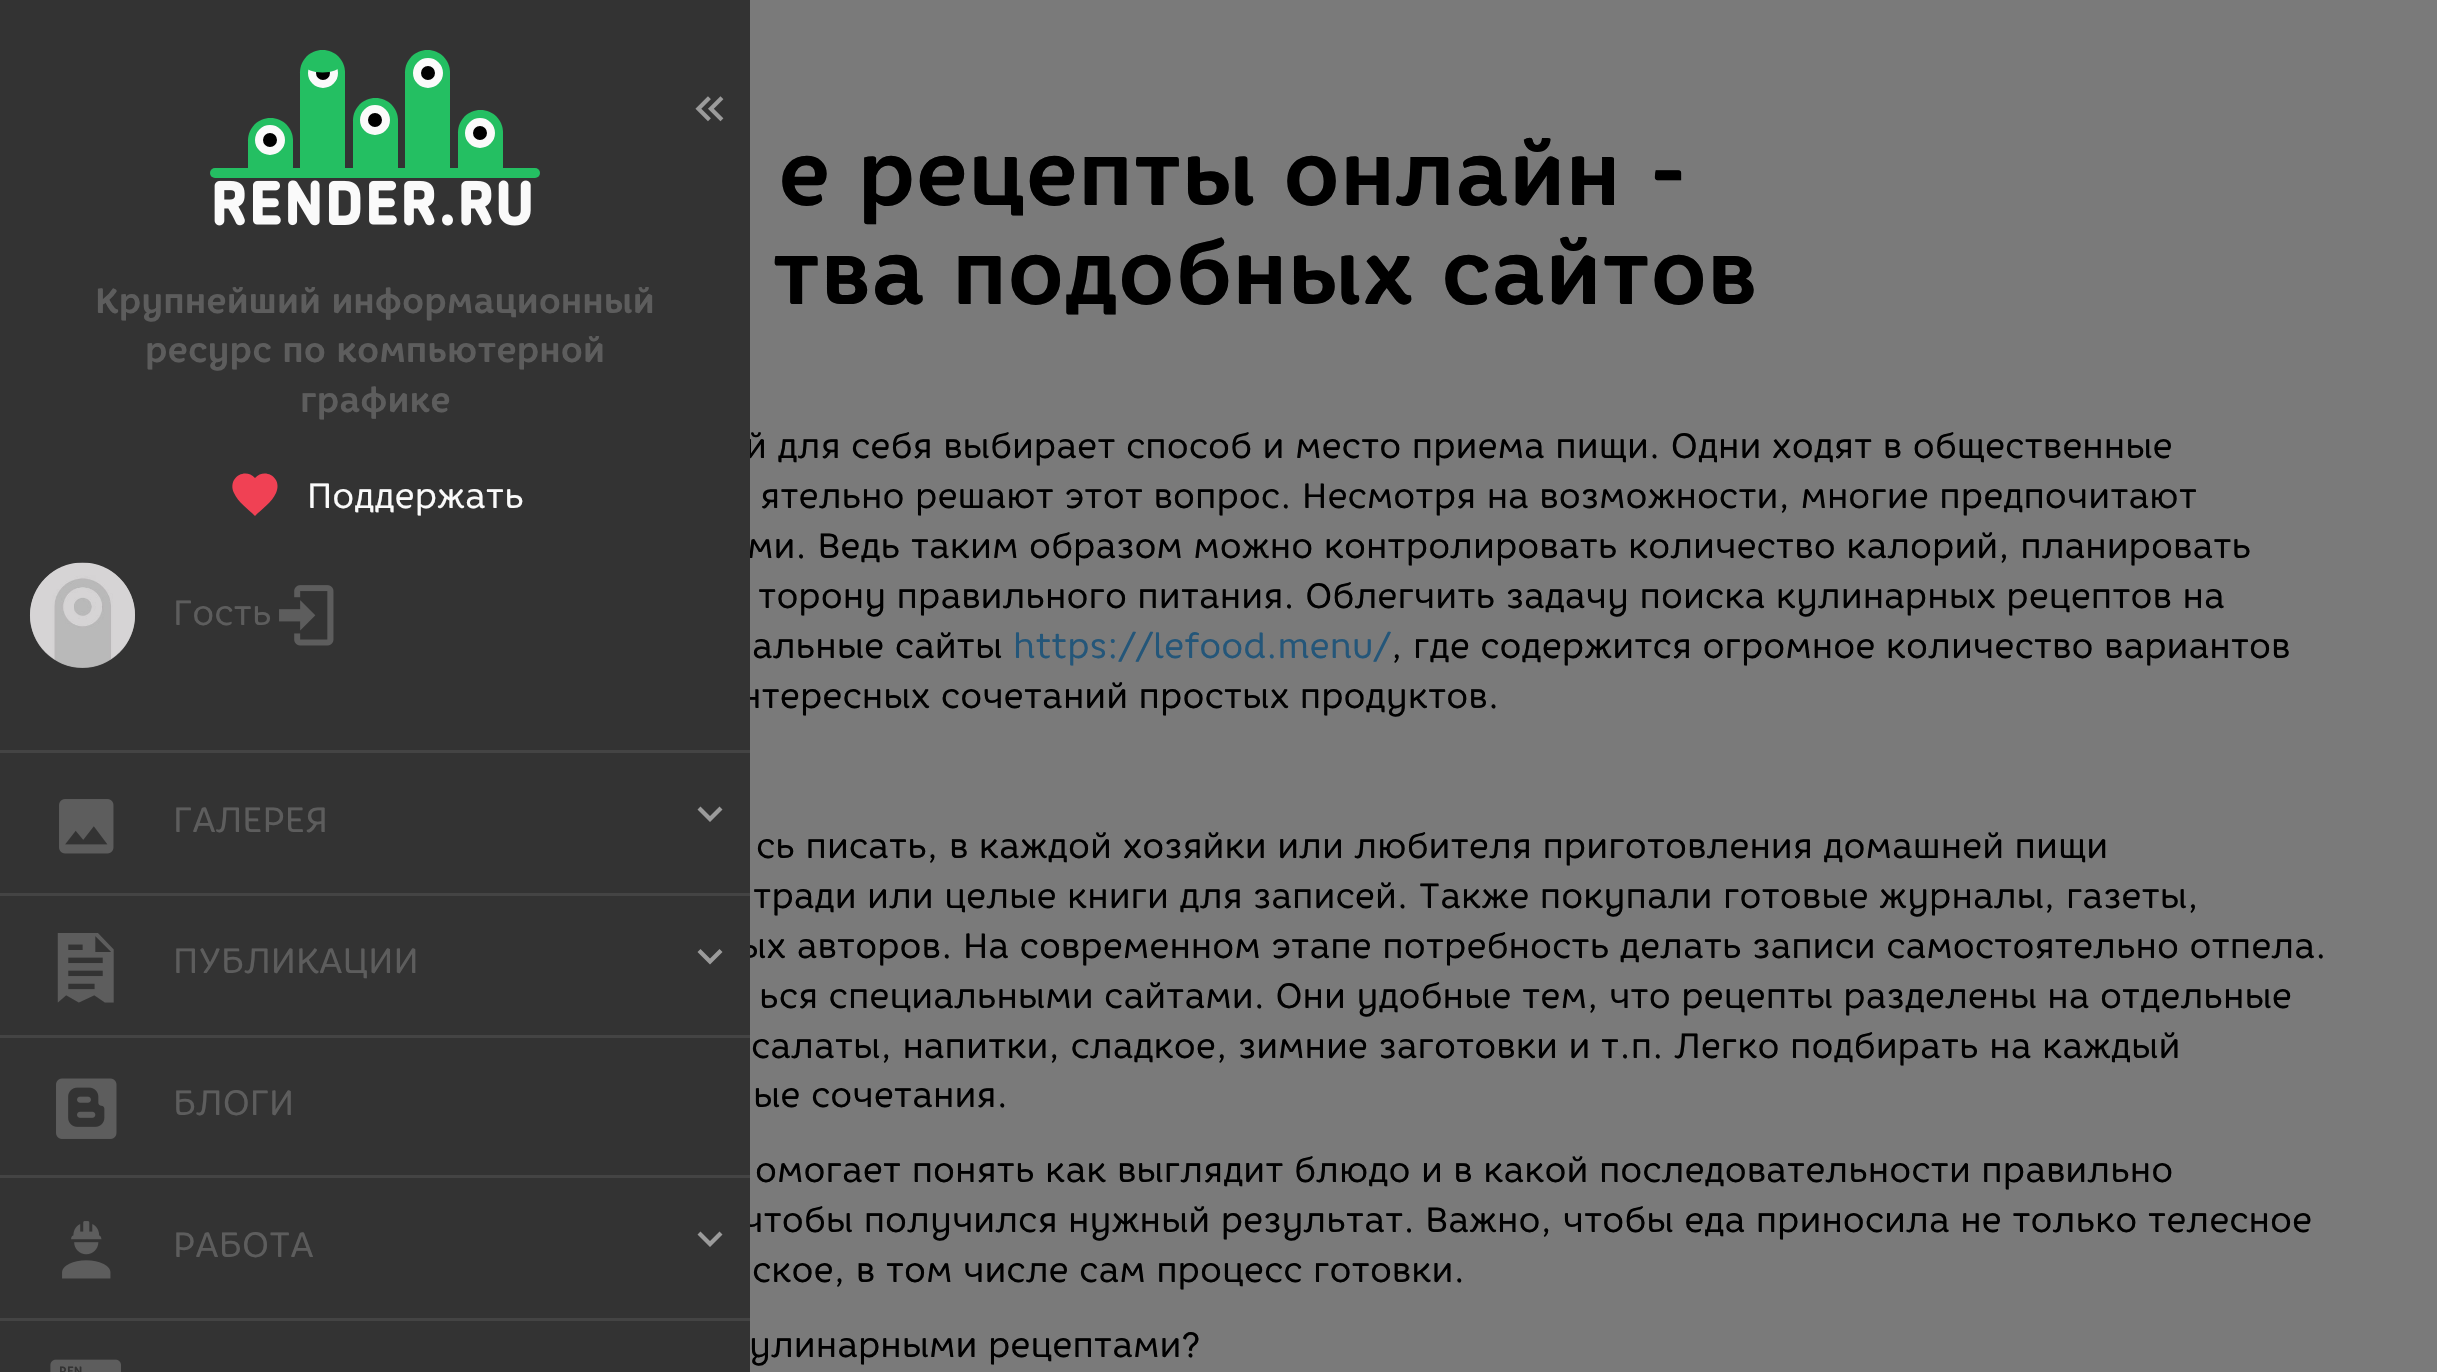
#include "include/core/SkBlurTypes.h"
#include "include/core/SkCanvas.h"
#include "include/core/SkData.h"
#include "include/core/SkFont.h"
#include "include/core/SkFontMgr.h"
#include "include/core/SkImage.h"
#include "include/core/SkMaskFilter.h"
#include "include/core/SkPaint.h"
#include "include/core/SkPathBuilder.h"
#include "include/core/SkTextBlob.h"
#include "include/effects/SkDashPathEffect.h"
#include "include/effects/SkGradientShader.h"
#include "include/utils/SkParsePath.h"

extern sk_sp<SkFontMgr> fontMgr;

void draw(SkCanvas* canvas) {
  SkPaint p;
  p.setAntiAlias(true);
  canvas->clear(SkColorSetRGB(122, 122, 122));
  SkFont font1(fontMgr->matchFamilyStyle("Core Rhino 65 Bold", SkFontStyle::Bold()), 90);
  font1.setSubpixel(true);
  p.setColor(SK_ColorBLACK);
  canvas->drawString("е рецепты онлайн -", 778, 205, font1, p);
  canvas->drawString("тва подобных сайтов", 772, 304, font1, p);
  SkFont font2(fontMgr->matchFamilyStyle("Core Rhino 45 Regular", SkFontStyle::Normal()), 35);
  font2.setSubpixel(true);
  canvas->drawString("й для себя выбирает способ и место приема пищи. Одни ходят в общественные", 745, 458, font2, p);
  canvas->drawString("ятельно решают этот вопрос. Несмотря на возможности, многие предпочитают", 760, 508, font2, p);
  canvas->drawString("ми. Ведь таким образом можно контролировать количество калорий, планировать", 747, 558, font2, p);
  canvas->drawString("торону правильного питания. Облегчить задачу поиска кулинарных рецептов на", 758, 608, font2, p);
  canvas->drawString("альные сайты", 752, 658, font2, p);
  p.setColor(SkColorSetRGB(36, 86, 121));
  canvas->drawString("https://lefood.menu/", 1013, 658, font2, p);
  p.setColor(SK_ColorBLACK);
  canvas->drawString(", где содержится огромное количество вариантов", 1391, 658, font2, p);
  canvas->drawString("нтересных сочетаний простых продуктов.", 740, 708, font2, p);
  canvas->drawString("сь писать, в каждой хозяйки или любителя приготовления домашней пищи", 756, 858, font2, p);
  canvas->drawString("тради или целые книги для записей. Также покупали готовые журналы, газеты,", 753, 908, font2, p);
  canvas->drawString("ых авторов. На современном этапе потребность делать записи самостоятельно отпела.", 739, 958, font2, p);
  canvas->drawString("ься специальными сайтами. Они удобные тем, что рецепты разделены на отдельные", 759, 1008, font2, p);
  canvas->drawString("салаты, напитки, сладкое, зимние заготовки и т.п. Легко подбирать на каждый", 751, 1058, font2, p);
  canvas->drawString("ые сочетания.", 753, 1107, font2, p);
  canvas->drawString("омогает понять как выглядит блюдо и в какой последовательности правильно", 755, 1182, font2, p);
  canvas->drawString("чтобы получился нужный результат. Важно, чтобы еда приносила не только телесное", 742, 1232, font2, p);
  p.setColor(SkColorSetRGB(51, 51, 51));
  canvas->drawRect(SkRect::MakeLTRB(0, 0, 750, 1372), p);
  canvas->drawImageRect(SkImages::DeferredFromEncodedData(SkData::MakeFromFileName("images/9.png")), SkRect::MakeLTRB(50, 1359, 121, 1372), SkSamplingOptions());
  SkFont font3(fontMgr->matchFamilyStyle("Core Rhino 65 Bold", SkFontStyle::Bold()), 12);
  font3.setSubpixel(true);
  canvas->drawString("REN", 59, 1375, font3, p);
  p.setColor(SkColorSetRGB(68, 68, 68));
  canvas->drawRect(SkRect::MakeLTRB(0, 1318, 750, 1321), p);
  p.setColor(SkColorSetRGB(155, 155, 155));
  canvas->drawPath(SkPathBuilder().moveTo(700.5f, 1231.5f).lineTo(710, 1241).lineTo(719.5f, 1231.5f).lineTo(722.5f, 1234.5f).lineTo(710, 1247).lineTo(697.5f, 1234.5f).close().detach(), p);
  canvas->drawImageRect(SkImages::DeferredFromEncodedData(SkData::MakeFromFileName("images/8.png")), SkRect::MakeLTRB(62, 1221, 111, 1279), SkSamplingOptions());
  p.setColor(SkColorSetRGB(93, 93, 93));
  canvas->drawString("РАБОТА", 173, 1257, font2, p);
  p.setColor(SkColorSetRGB(68, 68, 68));
  canvas->drawRect(SkRect::MakeLTRB(0, 1175, 750, 1178), p);
  canvas->drawImageRect(SkImages::DeferredFromEncodedData(SkData::MakeFromFileName("images/7.png")), SkRect::MakeLTRB(56, 1078, 117, 1139), SkSamplingOptions());
  p.setColor(SkColorSetRGB(93, 93, 93));
  canvas->drawString("БЛОГИ", 173, 1115, font2, p);
  p.setColor(SkColorSetRGB(68, 68, 68));
  canvas->drawRect(SkRect::MakeLTRB(0, 1035, 750, 1038), p);
  p.setColor(SkColorSetRGB(155, 155, 155));
  canvas->drawPath(SkPathBuilder().moveTo(700.5f, 949).lineTo(710, 958.5f).lineTo(719.5f, 949).lineTo(722.5f, 952).lineTo(710, 964.5f).lineTo(697.5f, 952).close().detach(), p);
  canvas->drawImageRect(SkImages::DeferredFromEncodedData(SkData::MakeFromFileName("images/6.png")), SkRect::MakeLTRB(57, 933, 114, 1003), SkSamplingOptions());
  p.setColor(SkColorSetRGB(93, 93, 93));
  canvas->drawString("ПУБЛИКАЦИИ", 173, 973, font2, p);
  p.setColor(SkColorSetRGB(68, 68, 68));
  canvas->drawRect(SkRect::MakeLTRB(0, 893, 750, 896), p);
  p.setColor(SkColorSetRGB(155, 155, 155));
  canvas->drawPath(SkPathBuilder().moveTo(700.5f, 806.5f).lineTo(710, 816).lineTo(719.5f, 806.5f).lineTo(722.5f, 809.5f).lineTo(710, 822).lineTo(697.5f, 809.5f).close().detach(), p);
  canvas->drawImageRect(SkImages::DeferredFromEncodedData(SkData::MakeFromFileName("images/5.png")), SkRect::MakeLTRB(59, 799, 114, 854), SkSamplingOptions());
  p.setColor(SkColorSetRGB(93, 93, 93));
  canvas->drawString("ГАЛЕРЕЯ", 173, 832, font2, p);
  p.setColor(SkColorSetRGB(68, 68, 68));
  canvas->drawRect(SkRect::MakeLTRB(0, 750, 750, 753), p);
  p.setColor(SkColorSetRGB(170, 170, 170));
  canvas->drawCircle(82.5f, 615.5f, 52.5f, p);
  canvas->drawImageRect(SkImages::DeferredFromEncodedData(SkData::MakeFromFileName("images/3.png")), SkRect::MakeLTRB(30, 562, 135, 668), SkSamplingOptions());
  canvas->drawImageRect(SkImages::DeferredFromEncodedData(SkData::MakeFromFileName("images/4.png")), SkRect::MakeLTRB(279, 585, 334, 646), SkSamplingOptions());
  p.setColor(SkColorSetRGB(93, 93, 93));
  canvas->drawString("Гость", 173, 625, font2, p);
  canvas->drawImageRect(SkImages::DeferredFromEncodedData(SkData::MakeFromFileName("images/1.png")), SkRect::MakeLTRB(695, 96, 724, 122), SkSamplingOptions());
  p.setColor(SkColorSetRGB(36, 191, 98));
  canvas->drawRoundRect(SkRect::MakeLTRB(210, 168, 540, 178), 5, 5, p);
  canvas->drawPath(SkPathBuilder().moveTo(480.5f, 110).cubicTo(493, 110, 503, 120, 503, 132.5f).lineTo(503, 178).lineTo(458, 178).lineTo(458, 132.5f).cubicTo(458, 120, 468, 110, 480.5f, 110).close().detach(), p);
  p.setColor(SK_ColorBLACK);
  canvas->drawCircle(480, 133, 11, p);
  p.setStyle(SkPaint::kStroke_Style);
  p.setStrokeWidth(8);
  p.setColor(SkColorSetRGB(250, 250, 250));
  canvas->drawCircle(480, 133, 11, p);
  p.setStyle(SkPaint::kFill_Style);
  p.setColor(SkColorSetRGB(36, 191, 98));
  canvas->drawPath(SkPathBuilder().moveTo(427.5f, 50).cubicTo(440, 50, 450, 60, 450, 72.5f).lineTo(450, 178).lineTo(405, 178).lineTo(405, 72.5f).cubicTo(405, 60, 415, 50, 427.5f, 50).close().detach(), p);
  p.setColor(SK_ColorBLACK);
  canvas->drawCircle(428, 73, 11, p);
  p.setStyle(SkPaint::kStroke_Style);
  p.setColor(SkColorSetRGB(250, 250, 250));
  canvas->drawCircle(428, 73, 11, p);
  p.setStyle(SkPaint::kFill_Style);
  p.setColor(SkColorSetRGB(36, 191, 98));
  canvas->drawPath(SkPathBuilder().moveTo(375.5f, 98).cubicTo(388, 98, 398, 108, 398, 120.5f).lineTo(398, 178).lineTo(353, 178).lineTo(353, 120.5f).cubicTo(353, 108, 363, 98, 375.5f, 98).close().detach(), p);
  p.setColor(SK_ColorBLACK);
  canvas->drawCircle(375, 120, 11, p);
  p.setStyle(SkPaint::kStroke_Style);
  p.setColor(SkColorSetRGB(250, 250, 250));
  canvas->drawCircle(375, 120, 11, p);
  p.setStyle(SkPaint::kFill_Style);
  p.setColor(SkColorSetRGB(36, 191, 98));
  canvas->drawPath(SkPathBuilder().moveTo(322.5f, 50).cubicTo(335, 50, 345, 60, 345, 72.5f).lineTo(345, 178).lineTo(300, 178).lineTo(300, 72.5f).cubicTo(300, 60, 310, 50, 322.5f, 50).close().detach(), p);
  p.setColor(SK_ColorBLACK);
  canvas->drawCircle(323, 73, 11, p);
  p.setStyle(SkPaint::kStroke_Style);
  p.setColor(SkColorSetRGB(250, 250, 250));
  canvas->drawCircle(323, 73, 11, p);
  p.setStyle(SkPaint::kFill_Style);
  p.setColor(SkColorSetRGB(36, 191, 98));
  canvas->drawPath(SkPathBuilder().moveTo(322.5f, 55).cubicTo(332, 55, 340, 58, 340, 62).lineTo(340, 65.5f).cubicTo(340, 69.5f, 332, 72.5f, 322.5f, 72.5f).cubicTo(313, 72.5f, 305, 69.5f, 305, 65.5f).lineTo(305, 62).cubicTo(305, 58, 313, 55, 322.5f, 55).close().detach(), p);
  canvas->drawPath(SkPathBuilder().moveTo(270.5f, 118).cubicTo(283, 118, 293, 128, 293, 140.5f).lineTo(293, 178).lineTo(248, 178).lineTo(248, 140.5f).cubicTo(248, 128, 258, 118, 270.5f, 118).close().detach(), p);
  p.setColor(SK_ColorBLACK);
  canvas->drawCircle(270, 140, 11, p);
  p.setStyle(SkPaint::kStroke_Style);
  p.setColor(SkColorSetRGB(250, 250, 250));
  canvas->drawCircle(270, 140, 11, p);
  canvas->drawImageRect(SkImages::DeferredFromEncodedData(SkData::MakeFromFileName("images/2.png")), SkRect::MakeLTRB(214, 180, 531, 226), SkSamplingOptions());
  p.setStyle(SkPaint::kFill_Style);
  canvas->drawString("Поддержать", 307, 508, font2, p);
  p.setColor(SkColorSetRGB(240, 65, 84));
  canvas->drawPath(SkPathBuilder().moveTo(255, 516).cubicTo(248, 509, 238, 502, 234, 493).cubicTo(227, 478, 245, 467, 255, 478).cubicTo(265, 467, 283, 478, 276, 493).cubicTo(272, 502, 262, 509, 255, 516).close().detach(), p);
  SkFont font4(fontMgr->matchFamilyStyle("Core Rhino 65 Bold", SkFontStyle::Bold()), 35);
  font4.setSubpixel(true);
  p.setColor(SkColorSetRGB(93, 93, 93));
  canvas->drawString("графике", 300, 412, font4, p);
  canvas->drawString("ресурс по компьютерной", 145, 362, font4, p);
  canvas->drawString("Крупнейший информационный", 95, 313, font4, p);
  p.setColor(SK_ColorBLACK);
  canvas->drawString("ское, в том числе сам процесс готовки.", 752, 1282, font2, p);
  canvas->drawString("улинарными рецептами?", 749, 1357, font2, p);
}
